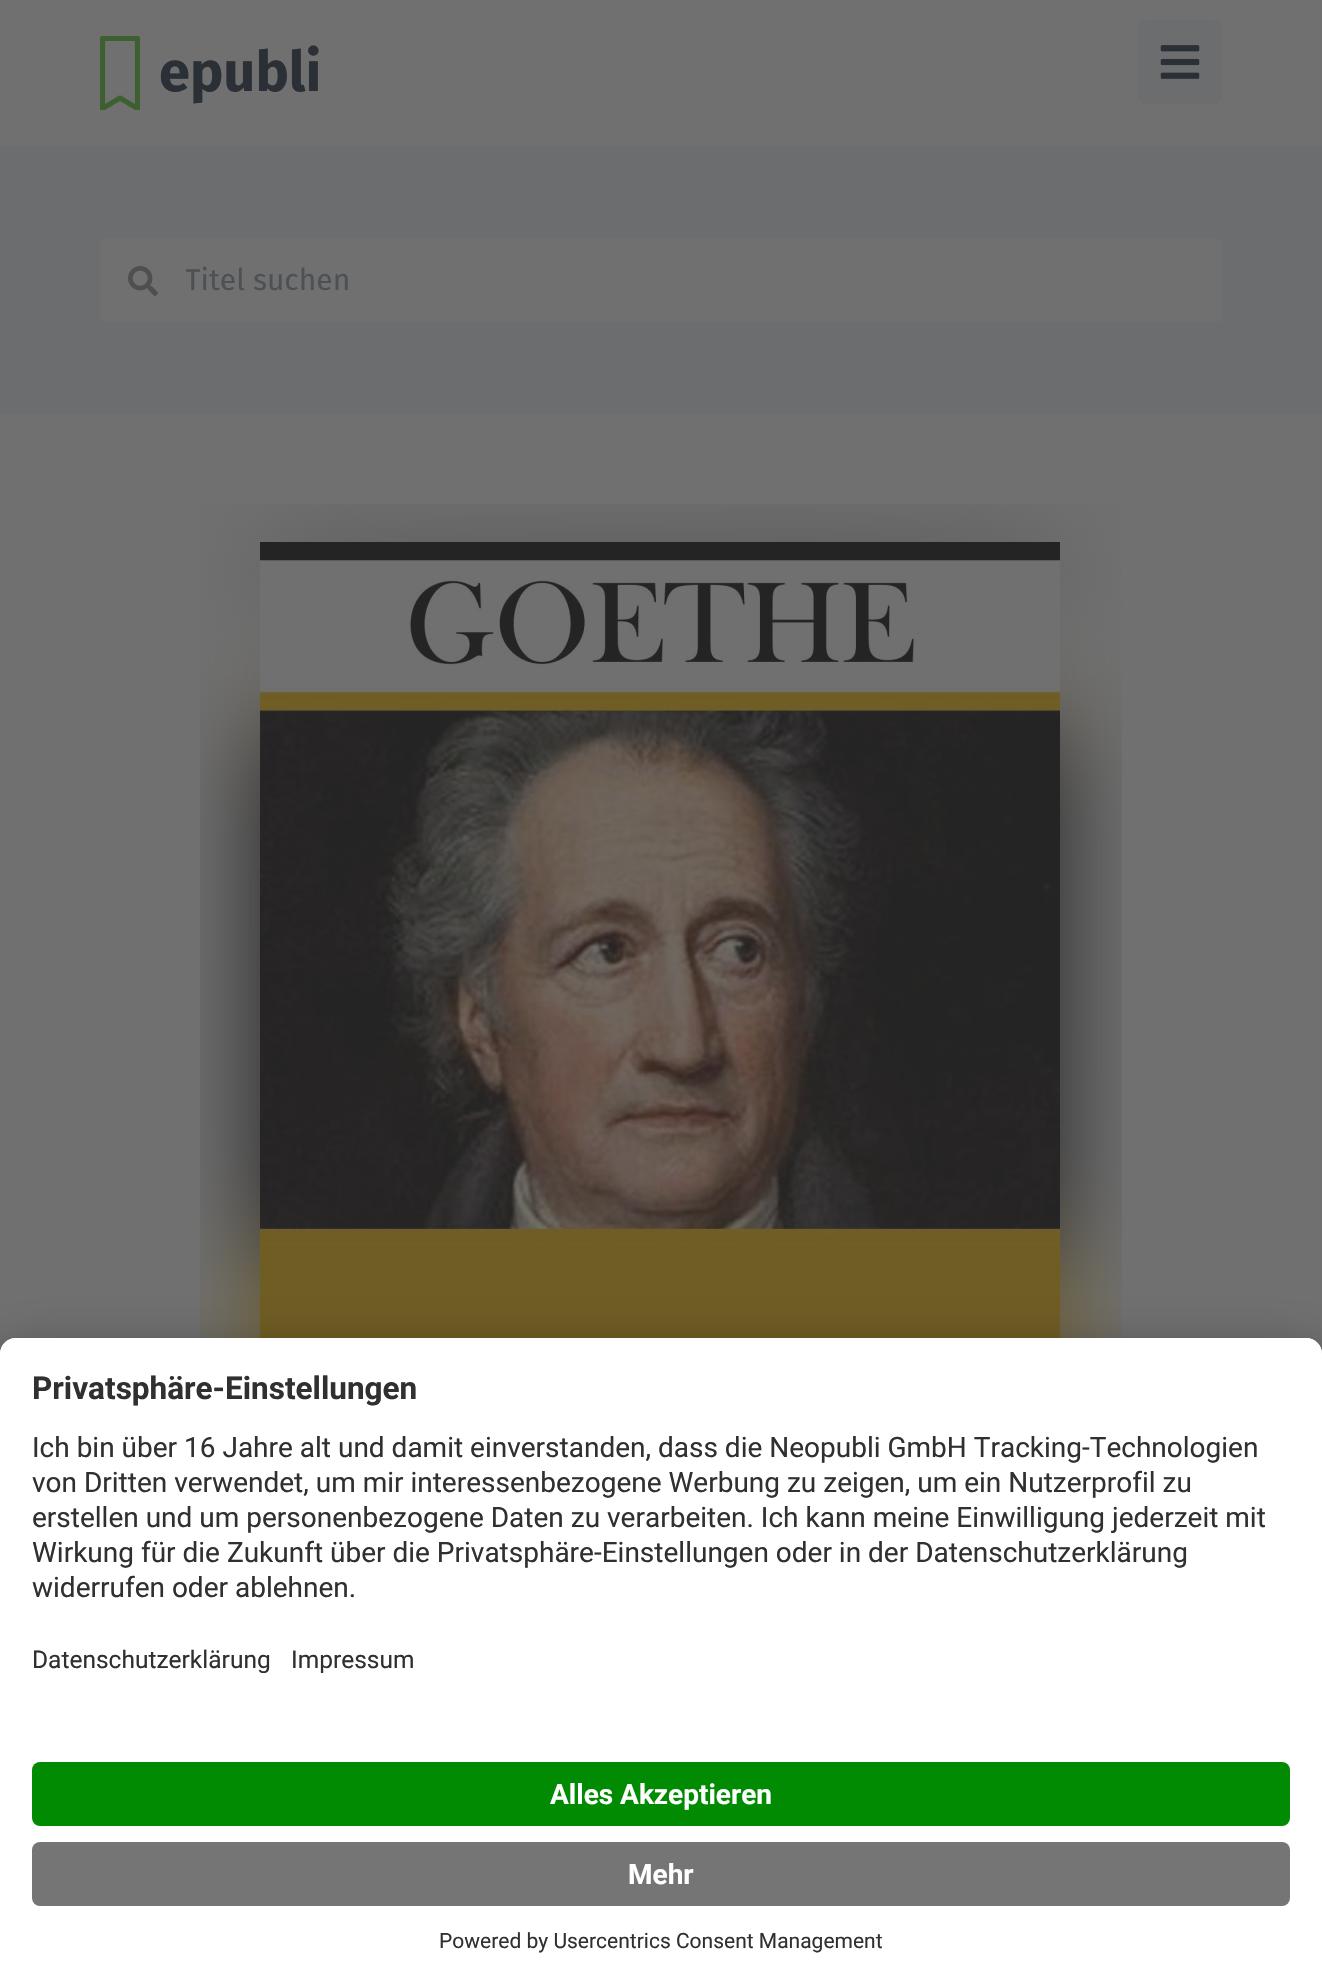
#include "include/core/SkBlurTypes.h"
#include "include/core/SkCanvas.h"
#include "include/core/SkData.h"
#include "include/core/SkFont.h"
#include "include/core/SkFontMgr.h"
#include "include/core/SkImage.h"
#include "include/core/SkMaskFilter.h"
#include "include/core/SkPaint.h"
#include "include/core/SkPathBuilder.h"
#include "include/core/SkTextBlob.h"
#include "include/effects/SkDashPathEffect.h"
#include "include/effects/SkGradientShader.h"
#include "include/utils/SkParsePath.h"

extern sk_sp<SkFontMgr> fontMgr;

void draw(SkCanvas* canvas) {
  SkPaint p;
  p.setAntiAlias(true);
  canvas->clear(SkColorSetRGB(112, 112, 112));
  canvas->save();
  canvas->clipRect(SkRect::MakeLTRB(100, 36, 140, 110));
  p.setStyle(SkPaint::kStroke_Style);
  p.setStrokeWidth(5.1f);
  p.setStrokeCap(SkPaint::kRound_Cap);
  p.setStrokeJoin(SkPaint::kRound_Join);
  p.setColor(SkColorSetRGB(62, 95, 48));
  canvas->drawPath(SkPathBuilder().moveTo(102.5f, 108.5f).lineTo(120, 98).lineTo(137.5f, 108.5f).lineTo(137.5f, 38.5f).lineTo(102.5f, 38.5f).close().detach(), p);
  canvas->restore();
  p.setStyle(SkPaint::kFill_Style);
  p.setColor(SkColorSetRGB(108, 109, 110));
  canvas->drawRoundRect(SkRect::MakeLTRB(1138, 20, 1222, 104), 8, 8, p);
  canvas->drawImageRect(SkImages::DeferredFromEncodedData(SkData::MakeFromFileName("images/1.png")), SkRect::MakeLTRB(1160, 45, 1200, 79), SkSamplingOptions());
  canvas->drawRect(SkRect::MakeLTRB(0, 146, 1322, 414), p);
  p.setColor(SkColorSetRGB(112, 112, 112));
  canvas->drawRoundRect(SkRect::MakeLTRB(100, 238, 1222, 322), 6, 6, p);
  canvas->drawImageRect(SkImages::DeferredFromEncodedData(SkData::MakeFromFileName("images/2.png")), SkRect::MakeLTRB(128, 266, 158, 296), SkSamplingOptions());
  canvas->drawImageRect(SkImages::DeferredFromEncodedData(SkData::MakeFromFileName("images/3.png")), SkRect::MakeLTRB(200, 504, 1122, 1338), SkSamplingOptions());
  canvas->drawImageRect(SkImages::DeferredFromEncodedData(SkData::MakeFromFileName("images/4.png")), SkRect::MakeLTRB(260, 542, 1060, 1338), SkSamplingOptions());
  p.setColor(SkColorSetARGB(77, 0, 0, 0));
  p.setMaskFilter(SkMaskFilter::MakeBlur(kNormal_SkBlurStyle, 28));
  canvas->drawRoundRect(SkRect::MakeLTRB(0, 1378, 1322, 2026), 16, 16, p);
  p.setMaskFilter(nullptr);
  p.setColor(SkColorSetARGB(56, 0, 0, 0));
  p.setMaskFilter(SkMaskFilter::MakeBlur(kNormal_SkBlurStyle, 26));
  canvas->drawRoundRect(SkRect::MakeLTRB(0, 1348, 1322, 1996), 16, 16, p);
  p.setMaskFilter(nullptr);
  p.setColor(SK_ColorWHITE);
  canvas->drawPath(SkPathBuilder().moveTo(16, 1338).lineTo(1306, 1338).cubicTo(1315, 1338, 1322, 1345, 1322, 1354).lineTo(1322, 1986).lineTo(0, 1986).lineTo(0, 1354).cubicTo(0, 1345, 7, 1338, 16, 1338).close().detach(), p);
  canvas->drawPath(SkPathBuilder().moveTo(16, 1338).lineTo(1306, 1338).cubicTo(1315, 1338, 1322, 1345, 1322, 1354).lineTo(1322, 1738).lineTo(0, 1738).lineTo(0, 1354).cubicTo(0, 1345, 7, 1338, 16, 1338).close().detach(), p);
  p.setColor(SkColorSetRGB(0, 139, 2));
  canvas->drawRoundRect(SkRect::MakeLTRB(32, 1762, 1290, 1826), 8, 8, p);
  p.setColor(SkColorSetRGB(117, 117, 117));
  canvas->drawRoundRect(SkRect::MakeLTRB(32, 1842, 1290, 1906), 8, 8, p);
  SkFont font1(fontMgr->matchFamilyStyle("Fira Sans", SkFontStyle::Bold()), 56);
  font1.setSubpixel(true);
  p.setColor(SkColorSetRGB(43, 48, 54));
  canvas->drawString("epubli", 159, 91, font1, p);
  canvas->save();
  canvas->clipRect(SkRect::MakeLTRB(186, 262, 1166, 298));
  SkFont font2(fontMgr->matchFamilyStyle("Fira Sans", SkFontStyle::Normal()), 30);
  font2.setSubpixel(true);
  p.setColor(SkColorSetRGB(77, 80, 85));
  canvas->drawString("Titel suchen", 185, 290, font2, p);
  canvas->restore();
  SkFont font3(fontMgr->matchFamilyStyle("Roboto", SkFontStyle::Bold()), 31.5f);
  font3.setSubpixel(true);
  p.setColor(SkColorSetRGB(48, 48, 48));
  canvas->drawString("Privatsphäre-Einstellungen", 32, 1399, font3, p);
  SkFont font4(fontMgr->matchFamilyStyle("Roboto", SkFontStyle::Normal()), 28);
  font4.setSubpixel(true);
  canvas->drawString("Ich bin über 16 Jahre alt und damit einverstanden, dass die Neopubli GmbH Tracking-Technologien", 32, 1457, font4, p);
  canvas->drawString("von Dritten verwendet, um mir interessenbezogene Werbung zu zeigen, um ein Nutzerprofil zu", 32, 1492, font4, p);
  canvas->drawString("erstellen und um personenbezogene Daten zu verarbeiten. Ich kann meine Einwilligung jederzeit mit", 32, 1527, font4, p);
  canvas->drawString("Wirkung für die Zukunft über die Privatsphäre-Einstellungen oder in der Datenschutzerklärung", 32, 1562, font4, p);
  canvas->drawString("widerrufen oder ablehnen.", 32, 1597, font4, p);
  SkFont font5(fontMgr->matchFamilyStyle("Roboto", SkFontStyle::Normal()), 24.5f);
  font5.setSubpixel(true);
  canvas->drawString("Datenschutzerklärung", 32, 1668, font5, p);
  canvas->drawString("Impressum", 291, 1668, font5, p);
  SkFont font6(fontMgr->matchFamilyStyle("Roboto", SkFontStyle::Bold()), 28);
  font6.setSubpixel(true);
  p.setColor(SK_ColorWHITE);
  canvas->drawString("Alles Akzeptieren", 550, 1804, font6, p);
  canvas->drawString("Mehr", 628, 1884, font6, p);
  SkFont font7(fontMgr->matchFamilyStyle("Roboto", SkFontStyle::Normal()), 21);
  font7.setSubpixel(true);
  p.setColor(SkColorSetRGB(48, 48, 48));
  canvas->drawString("Powered by Usercentrics Consent Management", 439, 1948, font7, p);
}
